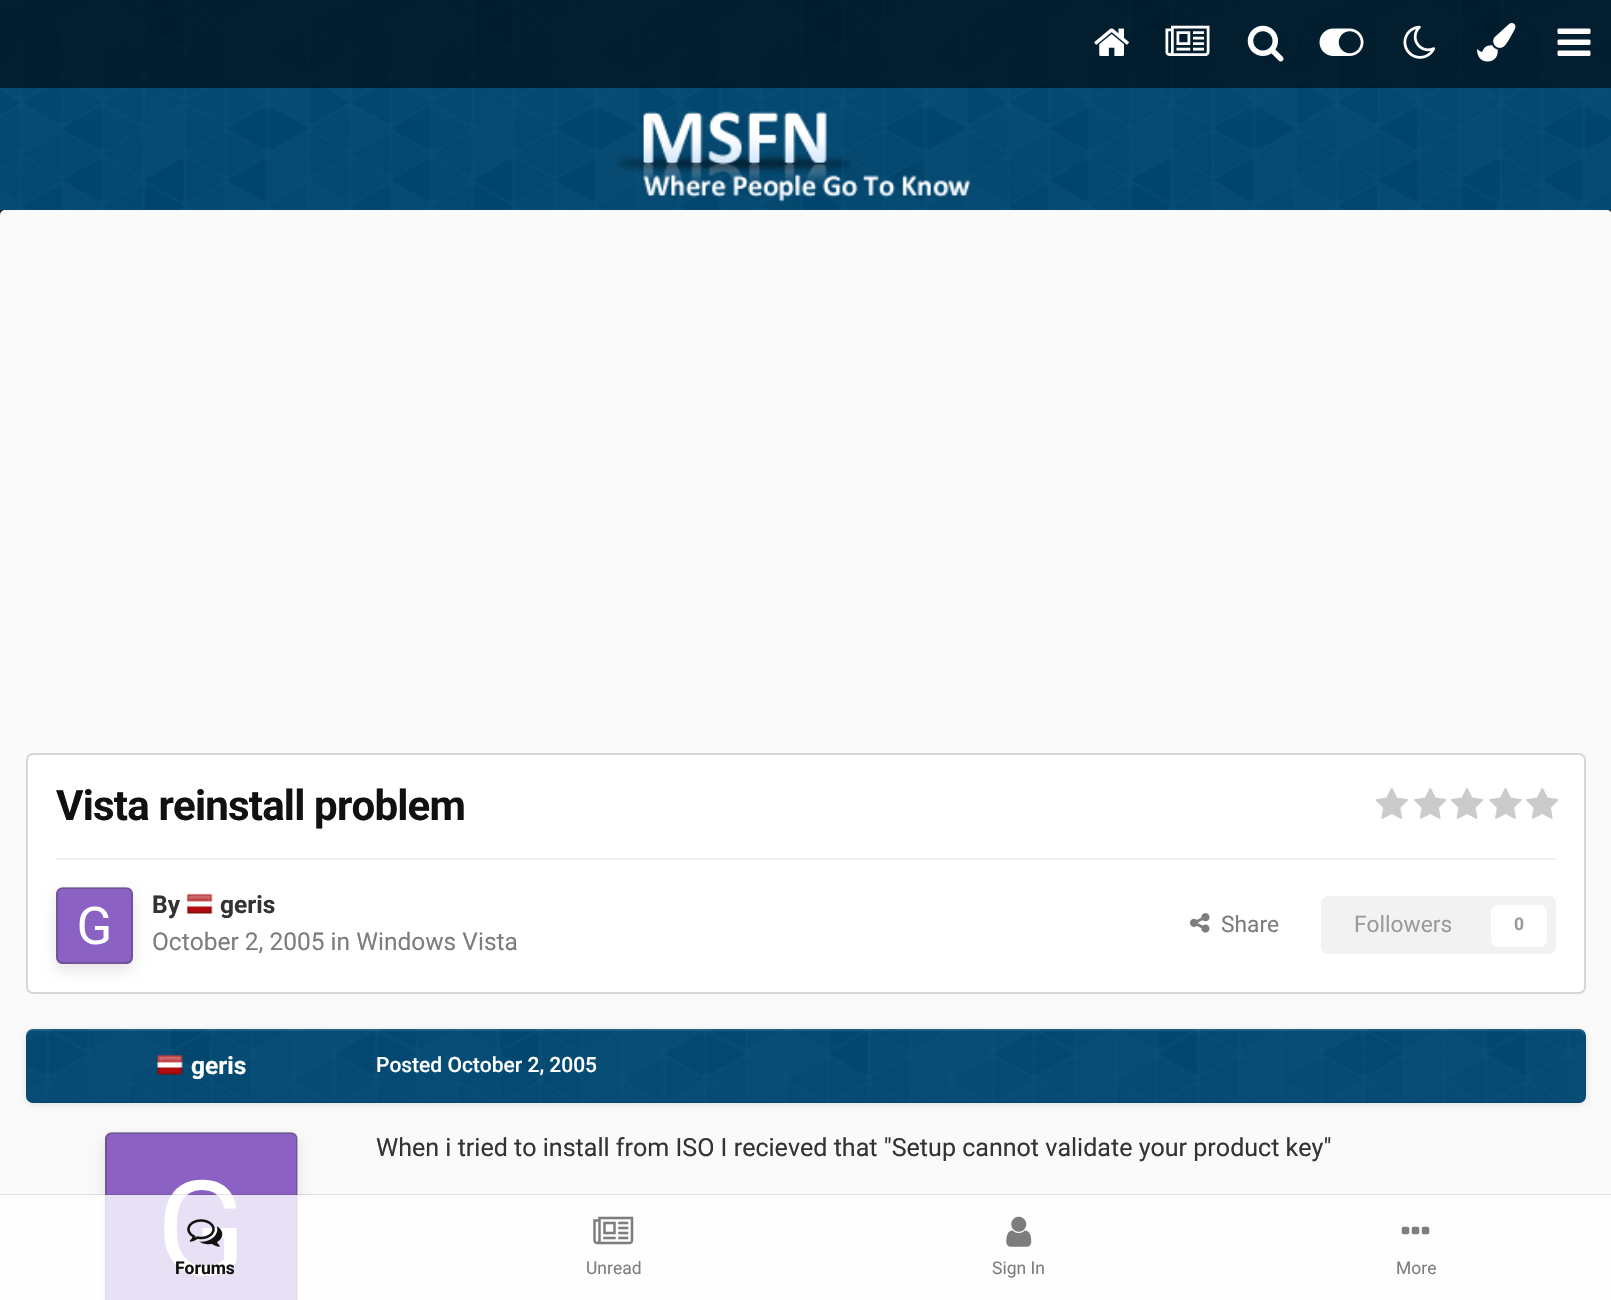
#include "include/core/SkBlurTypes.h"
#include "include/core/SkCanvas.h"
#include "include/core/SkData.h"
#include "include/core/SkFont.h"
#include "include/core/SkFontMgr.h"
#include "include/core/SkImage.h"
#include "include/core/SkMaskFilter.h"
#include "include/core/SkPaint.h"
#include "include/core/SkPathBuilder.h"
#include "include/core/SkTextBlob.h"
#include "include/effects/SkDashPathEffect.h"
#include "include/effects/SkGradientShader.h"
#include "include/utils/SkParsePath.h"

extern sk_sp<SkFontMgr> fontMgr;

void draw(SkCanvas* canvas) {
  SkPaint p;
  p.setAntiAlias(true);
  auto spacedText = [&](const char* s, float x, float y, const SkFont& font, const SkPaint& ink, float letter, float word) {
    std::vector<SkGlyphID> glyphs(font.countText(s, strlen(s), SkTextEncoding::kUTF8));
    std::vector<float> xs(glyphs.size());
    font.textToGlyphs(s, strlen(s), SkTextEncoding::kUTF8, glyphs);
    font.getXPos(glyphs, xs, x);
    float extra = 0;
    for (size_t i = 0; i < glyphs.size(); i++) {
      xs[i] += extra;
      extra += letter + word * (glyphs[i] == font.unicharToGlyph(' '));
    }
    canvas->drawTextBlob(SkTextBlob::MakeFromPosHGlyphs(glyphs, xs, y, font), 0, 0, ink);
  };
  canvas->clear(SkColorSetRGB(19, 33, 41));
  p.setColor(SkColorSetRGB(1, 73, 116));
  canvas->drawRect(SkRect::MakeLTRB(0, 0, 1611, 210), p);
  canvas->drawImageRect(SkImages::DeferredFromEncodedData(SkData::MakeFromFileName("images/1.png")), SkRect::MakeLTRB(0, 0, 1611, 210), SkSamplingOptions());
  p.setColor(SkColorSetARGB(153, 0, 0, 0));
  canvas->drawRect(SkRect::MakeLTRB(0, 0, 1611, 88), p);
  canvas->drawImageRect(SkImages::DeferredFromEncodedData(SkData::MakeFromFileName("images/2.png")), SkRect::MakeLTRB(1094, 28, 1129, 56), SkSamplingOptions());
  canvas->drawImageRect(SkImages::DeferredFromEncodedData(SkData::MakeFromFileName("images/3.png")), SkRect::MakeLTRB(1165, 25, 1210, 56), SkSamplingOptions());
  canvas->drawImageRect(SkImages::DeferredFromEncodedData(SkData::MakeFromFileName("images/4.png")), SkRect::MakeLTRB(1247, 25, 1284, 62), SkSamplingOptions());
  canvas->drawImageRect(SkImages::DeferredFromEncodedData(SkData::MakeFromFileName("images/5.png")), SkRect::MakeLTRB(1319, 28, 1364, 56), SkSamplingOptions());
  canvas->drawImageRect(SkImages::DeferredFromEncodedData(SkData::MakeFromFileName("images/6.png")), SkRect::MakeLTRB(1403, 25, 1436, 59), SkSamplingOptions());
  canvas->drawImageRect(SkImages::DeferredFromEncodedData(SkData::MakeFromFileName("images/7.png")), SkRect::MakeLTRB(1477, 23, 1516, 62), SkSamplingOptions());
  canvas->drawImageRect(SkImages::DeferredFromEncodedData(SkData::MakeFromFileName("images/8.png")), SkRect::MakeLTRB(1557, 28, 1591, 56), SkSamplingOptions());
  canvas->drawImageRect(SkImages::DeferredFromEncodedData(SkData::MakeFromFileName("images/9.png")), SkRect::MakeLTRB(616, 111, 971, 203), SkSamplingOptions());
  p.setColor(SkColorSetRGB(250, 250, 250));
  canvas->drawRoundRect(SkRect::MakeLTRB(0, 210, 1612, 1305), 5, 5, p);
  p.setColor(SK_ColorWHITE);
  canvas->drawRoundRect(SkRect::MakeLTRB(27, 754, 1585, 993), 6, 6, p);
  p.setStyle(SkPaint::kStroke_Style);
  p.setStrokeWidth(2);
  p.setColor(SkColorSetRGB(214, 214, 214));
  canvas->drawRoundRect(SkRect::MakeLTRB(27, 754, 1585, 993), 6, 6, p);
  canvas->drawImageRect(SkImages::DeferredFromEncodedData(SkData::MakeFromFileName("images/10.png")), SkRect::MakeLTRB(1375, 788, 1408, 819), SkSamplingOptions());
  canvas->drawImageRect(SkImages::DeferredFromEncodedData(SkData::MakeFromFileName("images/11.png")), SkRect::MakeLTRB(1414, 788, 1447, 819), SkSamplingOptions());
  canvas->drawImageRect(SkImages::DeferredFromEncodedData(SkData::MakeFromFileName("images/12.png")), SkRect::MakeLTRB(1450, 788, 1484, 819), SkSamplingOptions());
  canvas->drawImageRect(SkImages::DeferredFromEncodedData(SkData::MakeFromFileName("images/13.png")), SkRect::MakeLTRB(1489, 788, 1522, 819), SkSamplingOptions());
  canvas->drawImageRect(SkImages::DeferredFromEncodedData(SkData::MakeFromFileName("images/11.png")), SkRect::MakeLTRB(1526, 788, 1559, 819), SkSamplingOptions());
  p.setStyle(SkPaint::kFill_Style);
  p.setColor(SkColorSetRGB(239, 239, 239));
  canvas->drawRect(SkRect::MakeLTRB(56, 858, 1556, 860), p);
  canvas->drawImageRect(SkImages::DeferredFromEncodedData(SkData::MakeFromFileName("images/14.png")), SkRect::MakeLTRB(56, 887, 133, 964), SkSamplingOptions());
  canvas->save();
  canvas->clipPath(SkPathBuilder(SkPathFillType::kEvenOdd).moveTo(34, 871).lineTo(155, 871).lineTo(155, 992).lineTo(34, 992).close().moveTo(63, 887).lineTo(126, 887).cubicTo(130, 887, 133, 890, 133, 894).lineTo(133, 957).cubicTo(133, 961, 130, 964, 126, 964).lineTo(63, 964).cubicTo(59, 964, 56, 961, 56, 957).lineTo(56, 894).cubicTo(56, 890, 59, 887, 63, 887).close().detach(), true);
  p.setColor(SkColorSetARGB(26, 0, 0, 0));
  p.setMaskFilter(SkMaskFilter::MakeBlur(kNormal_SkBlurStyle, 7));
  canvas->drawRoundRect(SkRect::MakeLTRB(56, 893, 133, 970), 7, 7, p);
  p.setMaskFilter(nullptr);
  canvas->restore();
  p.setStyle(SkPaint::kStroke_Style);
  p.setColor(SkColorSetARGB(77, 51, 51, 51));
  canvas->drawRoundRect(SkRect::MakeLTRB(57, 888, 132, 963), 6, 6, p);
  canvas->drawImageRect(SkImages::DeferredFromEncodedData(SkData::MakeFromFileName("images/15.png")), SkRect::MakeLTRB(186, 893, 213, 914), SkSamplingOptions());
  canvas->drawImageRect(SkImages::DeferredFromEncodedData(SkData::MakeFromFileName("images/16.png")), SkRect::MakeLTRB(1190, 913, 1210, 933), SkSamplingOptions());
  p.setStyle(SkPaint::kFill_Style);
  p.setColor(SkColorSetRGB(242, 242, 242));
  canvas->drawRoundRect(SkRect::MakeLTRB(1321, 896, 1556, 954), 7, 7, p);
  p.setColor(SK_ColorWHITE);
  canvas->drawRoundRect(SkRect::MakeLTRB(1491, 905, 1547, 947), 7, 7, p);
  p.setColor(SkColorSetARGB(26, 0, 0, 0));
  p.setMaskFilter(SkMaskFilter::MakeBlur(kNormal_SkBlurStyle, 3.5f));
  canvas->drawRoundRect(SkRect::MakeLTRB(26, 1031, 1586, 1104), 7, 7, p);
  p.setMaskFilter(nullptr);
  p.setColor(SkColorSetRGB(1, 73, 116));
  canvas->drawRoundRect(SkRect::MakeLTRB(26, 1029, 1586, 1103), 7, 7, p);
  canvas->drawImageRect(SkImages::DeferredFromEncodedData(SkData::MakeFromFileName("images/17.png")), SkRect::MakeLTRB(27, 1029, 1585, 1102), SkSamplingOptions());
  p.setColor(SkColorSetARGB(26, 255, 255, 255));
  canvas->drawPath(SkPathBuilder().moveTo(33, 1031).lineTo(1578, 1031).cubicTo(1581, 1031, 1584, 1033, 1585, 1036).cubicTo(1585, 1032, 1582, 1029, 1578, 1029).lineTo(33, 1029).cubicTo(29, 1029, 26, 1032, 26, 1036).cubicTo(27, 1033, 30, 1031, 33, 1031).close().detach(), p);
  p.setColor(SkColorSetARGB(26, 51, 51, 51));
  canvas->drawRect(SkRect::MakeLTRB(30, 1101, 1582, 1103), p);
  canvas->drawImageRect(SkImages::DeferredFromEncodedData(SkData::MakeFromFileName("images/18.png")), SkRect::MakeLTRB(157, 1054, 183, 1075), SkSamplingOptions());
  p.setColor(SK_ColorWHITE);
  canvas->drawRoundRect(SkRect::MakeLTRB(105, 1132, 298, 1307), 7, 7, p);
  canvas->drawImageRect(SkImages::DeferredFromEncodedData(SkData::MakeFromFileName("images/19.png")), SkRect::MakeLTRB(105, 1132, 298, 1300), SkSamplingOptions());
  canvas->save();
  canvas->clipPath(SkPathBuilder(SkPathFillType::kEvenOdd).moveTo(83, 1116).lineTo(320, 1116).lineTo(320, 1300).lineTo(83, 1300).close().moveTo(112, 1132).lineTo(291, 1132).cubicTo(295, 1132, 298, 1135, 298, 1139).lineTo(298, 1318).cubicTo(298, 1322, 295, 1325, 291, 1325).lineTo(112, 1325).cubicTo(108, 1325, 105, 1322, 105, 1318).lineTo(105, 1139).cubicTo(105, 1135, 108, 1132, 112, 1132).close().detach(), true);
  p.setColor(SkColorSetARGB(26, 0, 0, 0));
  p.setMaskFilter(SkMaskFilter::MakeBlur(kNormal_SkBlurStyle, 7));
  canvas->drawRoundRect(SkRect::MakeLTRB(105, 1138, 298, 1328), 7, 7, p);
  p.setMaskFilter(nullptr);
  canvas->restore();
  p.setStyle(SkPaint::kStroke_Style);
  p.setColor(SkColorSetARGB(77, 51, 51, 51));
  canvas->drawRoundRect(SkRect::MakeLTRB(106, 1133, 297, 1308), 6, 6, p);
  p.setStyle(SkPaint::kFill_Style);
  p.setColor(SkColorSetARGB(26, 0, 0, 0));
  canvas->drawPath(SkPathBuilder().moveTo(0, 1194).lineTo(0, 1195).lineTo(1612, 1195).lineTo(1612, 1299).lineTo(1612, 1194).close().detach(), p);
  p.setColor(SkColorSetARGB(204, 255, 255, 255));
  canvas->drawRect(SkRect::MakeLTRB(0, 1195, 1611, 1300), p);
  canvas->drawImageRect(SkImages::DeferredFromEncodedData(SkData::MakeFromFileName("images/20.png")), SkRect::MakeLTRB(187, 1219, 223, 1247), SkSamplingOptions());
  canvas->drawImageRect(SkImages::DeferredFromEncodedData(SkData::MakeFromFileName("images/21.png")), SkRect::MakeLTRB(593, 1216, 634, 1245), SkSamplingOptions());
  canvas->drawImageRect(SkImages::DeferredFromEncodedData(SkData::MakeFromFileName("images/22.png")), SkRect::MakeLTRB(1006, 1216, 1032, 1247), SkSamplingOptions());
  canvas->drawImageRect(SkImages::DeferredFromEncodedData(SkData::MakeFromFileName("images/23.png")), SkRect::MakeLTRB(1401, 1226, 1430, 1235), SkSamplingOptions());
  SkFont font1(fontMgr->matchFamilyStyle("Roboto", SkFontStyle::Bold()), 42);
  font1.setSubpixel(true);
  p.setColor(SkColorSetRGB(17, 17, 17));
  spacedText("Vista reinstall problem", 56, 820, font1, p, -0.8f, 0);
  SkFont font2(fontMgr->matchFamilyStyle("Roboto", SkFontStyle::Bold()), 24.5f);
  font2.setSubpixel(true);
  p.setColor(SkColorSetRGB(51, 51, 51));
  canvas->drawString("By", 152, 913, font2, p);
  canvas->drawString("geris", 220, 913, font2, p);
  SkFont font3(fontMgr->matchFamilyStyle("Roboto", SkFontStyle::Normal()), 24.5f);
  font3.setSubpixel(true);
  p.setColor(SkColorSetRGB(125, 125, 125));
  canvas->drawString("October 2, 2005 in Windows Vista", 152, 950, font3, p);
  SkFont font4(fontMgr->matchFamilyStyle("Roboto", SkFontStyle::Normal()), 22.75f);
  font4.setSubpixel(true);
  canvas->drawString("Share", 1221, 932, font4, p);
  p.setColor(SkColorSetRGB(155, 155, 155));
  canvas->drawString("Followers", 1354, 932, font4, p);
  SkFont font5(fontMgr->matchFamilyStyle("Roboto", SkFontStyle::Bold()), 17.5f);
  font5.setSubpixel(true);
  canvas->drawString("0", 1514, 930, font5, p);
  p.setColor(SK_ColorWHITE);
  canvas->drawString("geris", 191, 1074, font2, p);
  SkFont font6(fontMgr->matchFamilyStyle("Roboto", SkFontStyle(500, SkFontStyle::kNormal_Width, SkFontStyle::kUpright_Slant)), 21);
  font6.setSubpixel(true);
  canvas->drawString("Posted October 2, 2005", 376, 1072, font6, p);
  SkFont font7(fontMgr->matchFamilyStyle("Roboto", SkFontStyle::Normal()), 25.05f);
  font7.setSubpixel(true);
  p.setColor(SkColorSetRGB(51, 51, 51));
  canvas->drawString("When i tried to install from ISO I recieved that \"Setup cannot validate your product key\"", 376, 1156, font7, p);
  p.setColor(SkColorSetRGB(17, 17, 17));
  canvas->drawString("Forums", 175, 1274, font5, p);
  SkFont font8(fontMgr->matchFamilyStyle("Roboto", SkFontStyle::Normal()), 17.5f);
  font8.setSubpixel(true);
  p.setColor(SkColorSetRGB(125, 125, 125));
  canvas->drawString("Unread", 586, 1274, font8, p);
  canvas->drawString("Sign In", 992, 1274, font8, p);
  canvas->drawString("More", 1396, 1274, font8, p);
}
